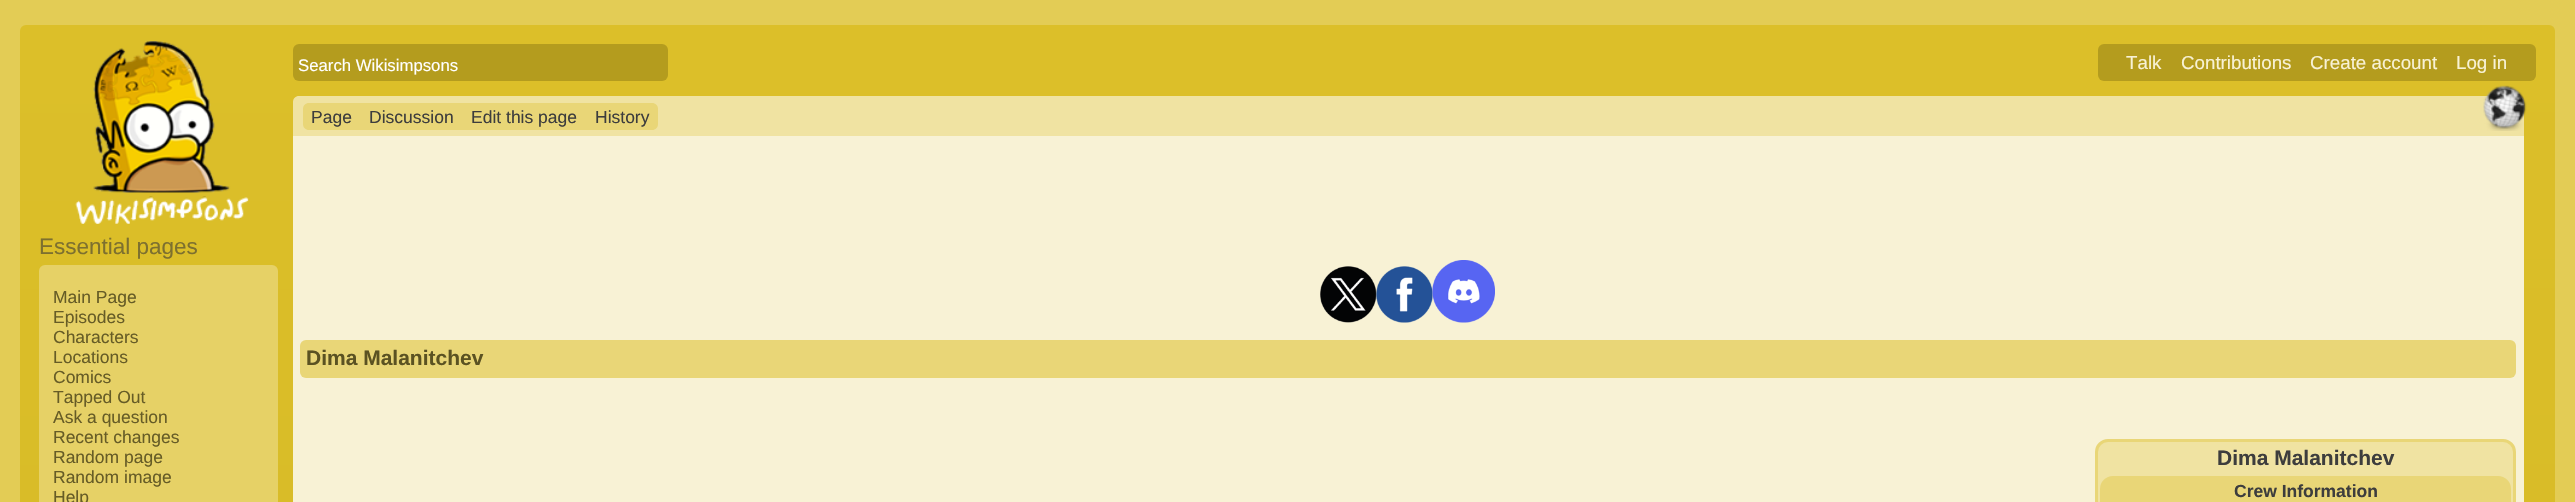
#include "include/core/SkBlurTypes.h"
#include "include/core/SkCanvas.h"
#include "include/core/SkData.h"
#include "include/core/SkFont.h"
#include "include/core/SkFontMgr.h"
#include "include/core/SkImage.h"
#include "include/core/SkMaskFilter.h"
#include "include/core/SkPaint.h"
#include "include/core/SkPathBuilder.h"
#include "include/core/SkTextBlob.h"
#include "include/effects/SkDashPathEffect.h"
#include "include/effects/SkGradientShader.h"
#include "include/utils/SkParsePath.h"

extern sk_sp<SkFontMgr> fontMgr;

void draw(SkCanvas* canvas) {
  SkPaint p;
  p.setAntiAlias(true);
  canvas->clear(SkColorSetRGB(227, 204, 85));
  {
    const SkColor colors[] = {SkColorSetRGB(220, 191, 41), SkColorSetRGB(202, 175, 33)};
    const float stops[] = {0, 1};
    const SkPoint ends[] = {{1287, 25}, {1288, 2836}};
    p.setShader(SkGradientShader::MakeLinear(ends, colors, stops, 2, SkTileMode::kClamp));
    p.setAlpha(255);
  }
  canvas->drawRoundRect(SkRect::MakeLTRB(20, 25, 2555, 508), 6, 6, p);
  p.setShader(nullptr);
  p.setColor(SkColorSetRGB(180, 156, 30));
  canvas->drawRoundRect(SkRect::MakeLTRB(293, 44, 668, 81), 6, 6, p);
  canvas->drawRoundRect(SkRect::MakeLTRB(2098, 44, 2536, 81), 6, 6, p);
  canvas->drawImageRect(SkImages::DeferredFromEncodedData(SkData::MakeFromFileName("images/1.png")), SkRect::MakeLTRB(75, 41, 249, 224), SkSamplingOptions());
  p.setColor(SkColorSetRGB(230, 209, 102));
  canvas->drawRoundRect(SkRect::MakeLTRB(39, 265, 278, 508), 6, 6, p);
  p.setColor(SkColorSetRGB(240, 227, 162));
  canvas->drawPath(SkPathBuilder().moveTo(299, 96).lineTo(2518, 96).cubicTo(2521.5f, 96, 2524, 98.5f, 2524, 102).lineTo(2524, 136).lineTo(293, 136).lineTo(293, 102).cubicTo(293, 98.5f, 295.5f, 96, 299, 96).close().detach(), p);
  p.setColor(SkColorSetRGB(233, 214, 119));
  canvas->drawPath(SkPathBuilder().moveTo(309, 103).lineTo(360, 103).lineTo(360, 130).lineTo(309, 130).cubicTo(305.5f, 130, 303, 127.5f, 303, 124).lineTo(303, 109).cubicTo(303, 105.5f, 305.5f, 103, 309, 103).close().detach(), p);
  canvas->drawRect(SkRect::MakeLTRB(360, 103, 586, 130), p);
  canvas->drawPath(SkPathBuilder().moveTo(586, 103).lineTo(652, 103).cubicTo(655.5f, 103, 658, 105.5f, 658, 109).lineTo(658, 124).cubicTo(658, 127.5f, 655.5f, 130, 652, 130).lineTo(586, 130).close().detach(), p);
  p.setColor(SkColorSetRGB(248, 242, 213));
  canvas->drawRect(SkRect::MakeLTRB(293, 136, 2524, 502), p);
  canvas->drawImageRect(SkImages::DeferredFromEncodedData(SkData::MakeFromFileName("images/2.png")), SkRect::MakeLTRB(1320, 266, 1377, 323), SkSamplingOptions());
  canvas->drawImageRect(SkImages::DeferredFromEncodedData(SkData::MakeFromFileName("images/3.png")), SkRect::MakeLTRB(1376, 266, 1433, 323), SkSamplingOptions());
  canvas->drawImageRect(SkImages::DeferredFromEncodedData(SkData::MakeFromFileName("images/4.png")), SkRect::MakeLTRB(1432, 260, 1495, 323), SkSamplingOptions());
  p.setColor(SkColorSetRGB(233, 214, 119));
  canvas->drawRoundRect(SkRect::MakeLTRB(300, 340, 2516, 378), 6, 6, p);
  canvas->drawImageRect(SkImages::DeferredFromEncodedData(SkData::MakeFromFileName("images/5.png")), SkRect::MakeLTRB(2483, 85, 2527, 131), SkSamplingOptions());
  p.setColor(SkColorSetRGB(240, 227, 162));
  canvas->drawRoundRect(SkRect::MakeLTRB(2096.5f, 440.5f, 2514.5f, 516.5f), 11.5f, 11.5f, p);
  p.setStyle(SkPaint::kStroke_Style);
  p.setStrokeWidth(3);
  p.setColor(SkColorSetRGB(233, 214, 119));
  canvas->drawRoundRect(SkRect::MakeLTRB(2096.5f, 440.5f, 2514.5f, 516.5f), 11.5f, 11.5f, p);
  p.setStyle(SkPaint::kFill_Style);
  canvas->drawRoundRect(SkRect::MakeLTRB(2100, 476, 2511, 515), 13, 13, p);
  SkFont font1(fontMgr->matchFamilyStyle("Liberation Sans", SkFontStyle::Normal()), 16.75f);
  font1.setSubpixel(true);
  p.setColor(SK_ColorWHITE);
  canvas->drawString("Search Wikisimpsons", 298, 71, font1, p);
  SkFont font2(fontMgr->matchFamilyStyle("Liberation Sans", SkFontStyle::Normal()), 18.75f);
  font2.setSubpixel(true);
  p.setColor(SkColorSetRGB(248, 242, 213));
  canvas->drawString("Talk", 2126, 69, font2, p);
  canvas->drawString("Contributions", 2181, 69, font2, p);
  canvas->drawString("Create account", 2310, 69, font2, p);
  canvas->drawString("Log in", 2456, 69, font2, p);
  SkFont font3(fontMgr->matchFamilyStyle("Liberation Sans", SkFontStyle::Normal()), 22.5f);
  font3.setSubpixel(true);
  p.setColor(SkColorSetRGB(125, 112, 47));
  canvas->drawString("Essential pages", 39, 254, font3, p);
  SkFont font4(fontMgr->matchFamilyStyle("Liberation Sans", SkFontStyle::Normal()), 17.5f);
  font4.setSubpixel(true);
  p.setColor(SkColorSetRGB(102, 92, 38));
  canvas->drawString("Main Page", 53, 303, font4, p);
  canvas->drawString("Episodes", 53, 323, font4, p);
  canvas->drawString("Characters", 53, 343, font4, p);
  canvas->drawString("Locations", 53, 363, font4, p);
  canvas->drawString("Comics", 53, 383, font4, p);
  canvas->drawString("Tapped Out", 53, 403, font4, p);
  canvas->drawString("Ask a question", 53, 423, font4, p);
  canvas->drawString("Recent changes", 53, 443, font4, p);
  canvas->drawString("Random page", 53, 463, font4, p);
  canvas->drawString("Random image", 53, 483, font4, p);
  canvas->drawString("Help", 53, 503, font4, p);
  p.setColor(SkColorSetRGB(61, 61, 61));
  canvas->drawString("Page", 311, 123, font4, p);
  canvas->drawString("Discussion", 369, 123, font4, p);
  canvas->drawString("Edit this page", 471, 123, font4, p);
  canvas->drawString("History", 595, 123, font4, p);
  SkFont font5(fontMgr->matchFamilyStyle("Liberation Sans", SkFontStyle::Bold()), 21);
  font5.setSubpixel(true);
  p.setColor(SkColorSetRGB(91, 82, 34));
  canvas->drawString("Dima Malanitchev", 306, 365, font5, p);
  p.setColor(SkColorSetRGB(61, 61, 61));
  canvas->drawString("Dima Malanitchev", 2217, 465, font5, p);
  SkFont font6(fontMgr->matchFamilyStyle("Liberation Sans", SkFontStyle::Bold()), 17.5f);
  font6.setSubpixel(true);
  canvas->drawString("Crew Information", 2234, 497, font6, p);
}
